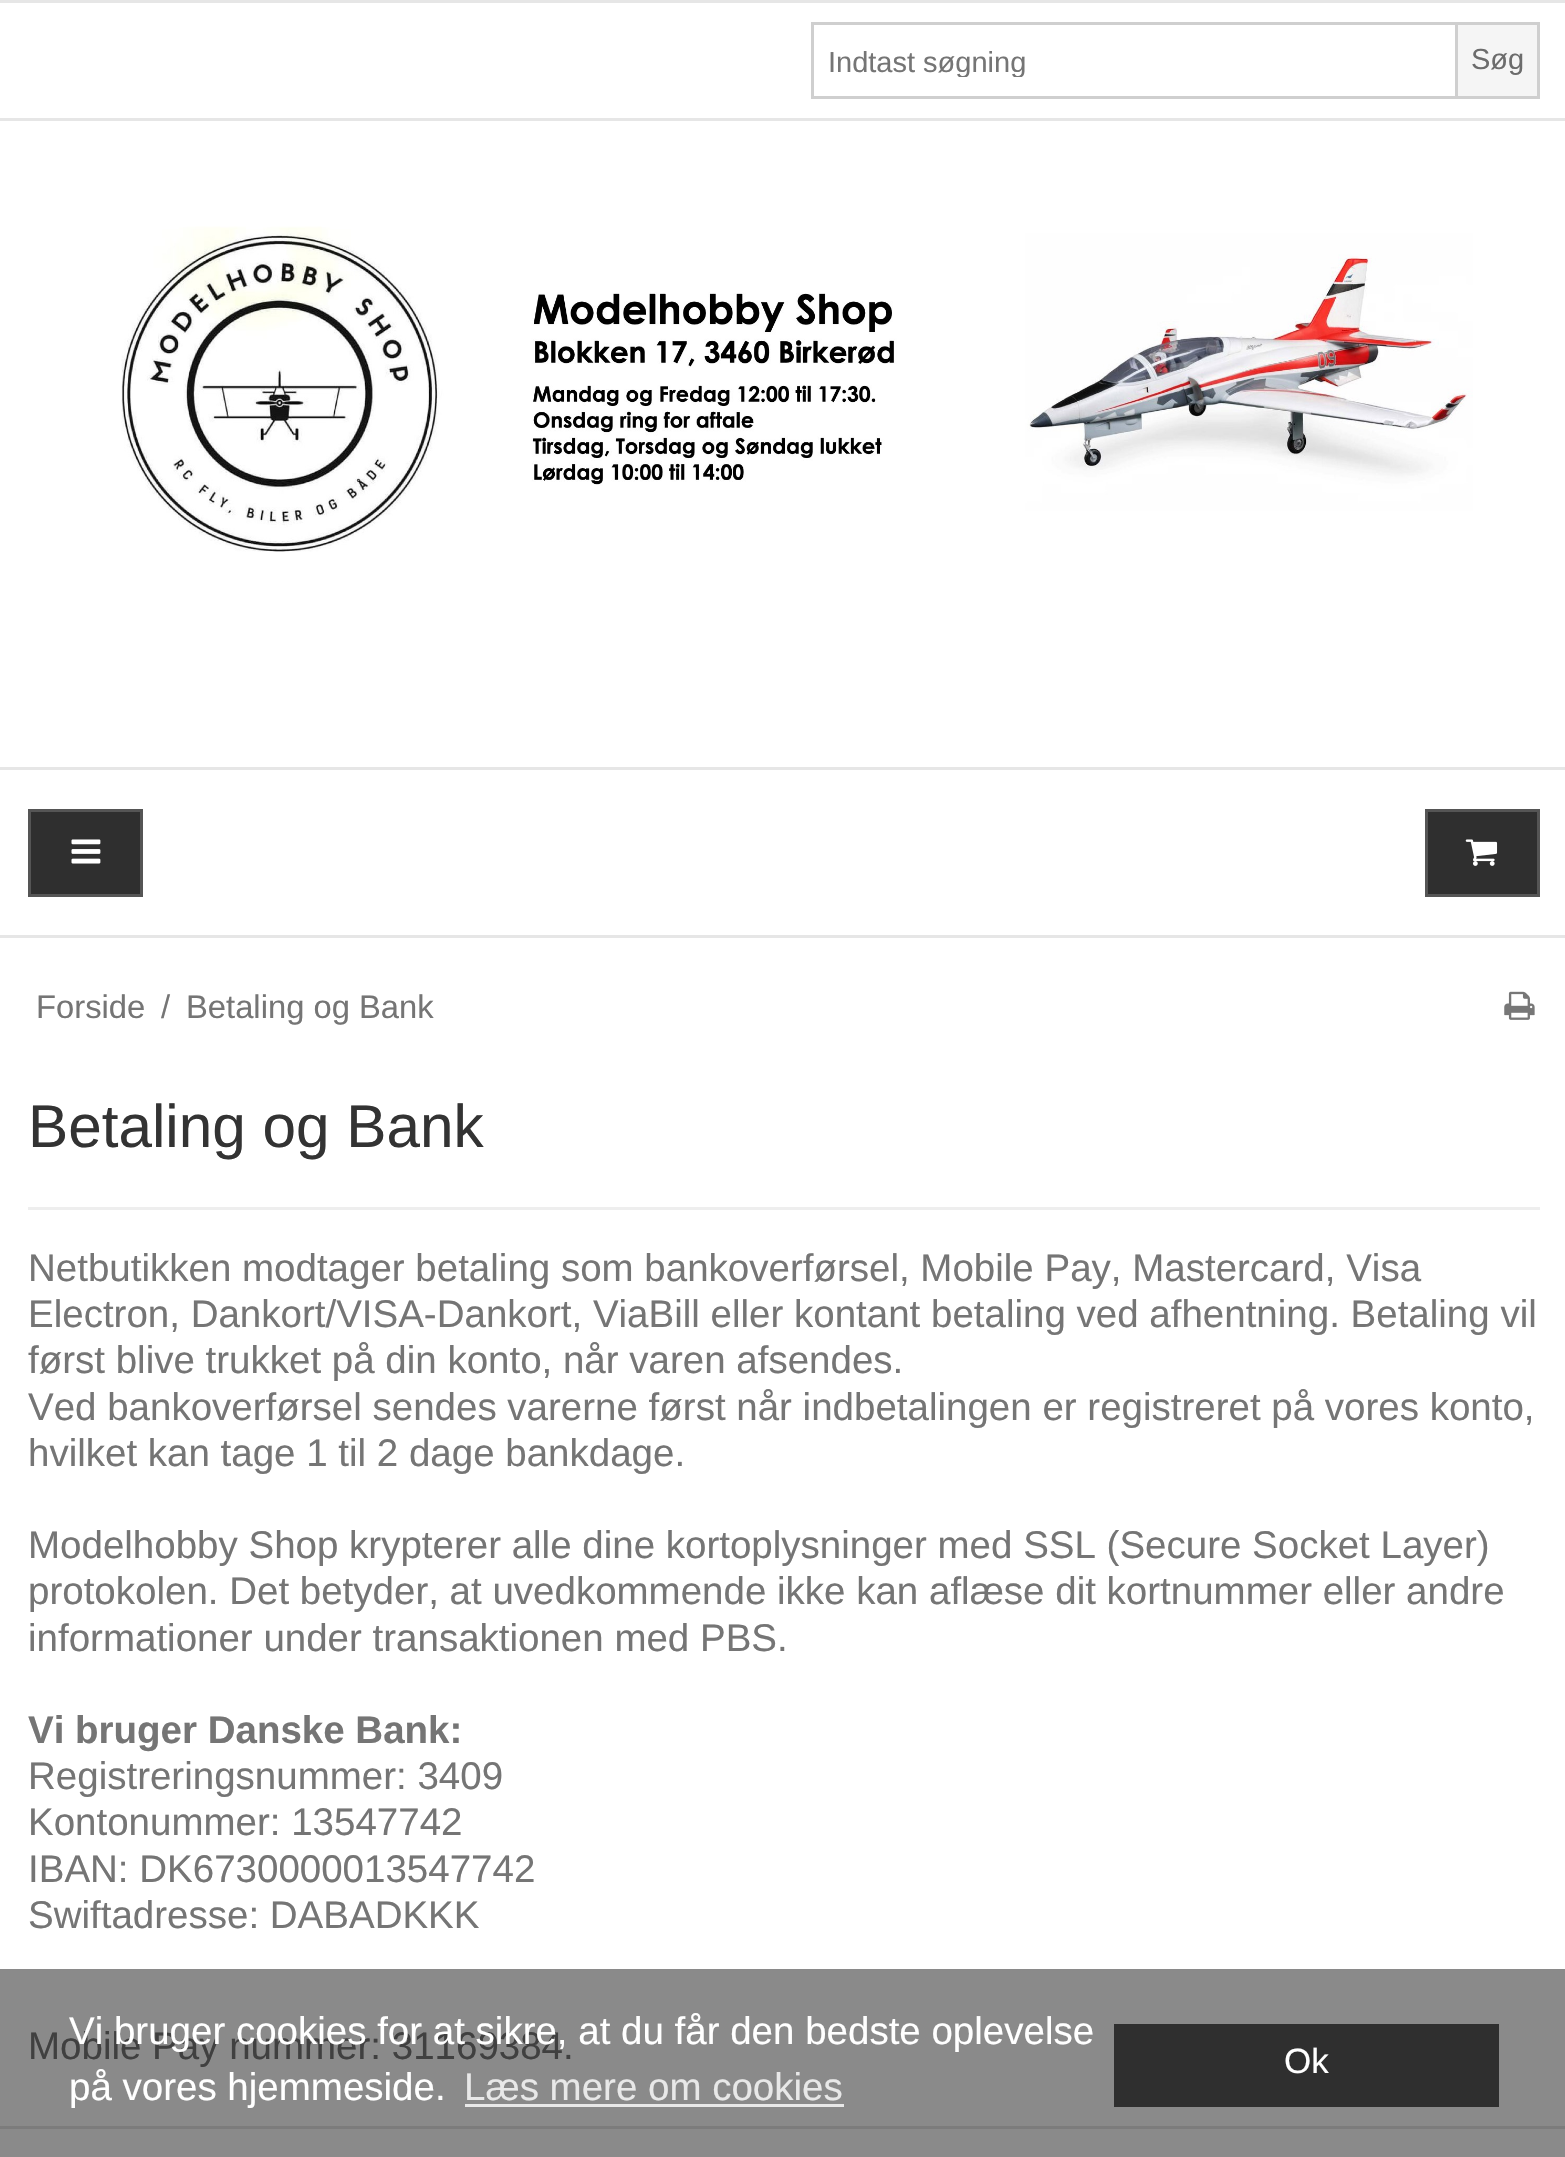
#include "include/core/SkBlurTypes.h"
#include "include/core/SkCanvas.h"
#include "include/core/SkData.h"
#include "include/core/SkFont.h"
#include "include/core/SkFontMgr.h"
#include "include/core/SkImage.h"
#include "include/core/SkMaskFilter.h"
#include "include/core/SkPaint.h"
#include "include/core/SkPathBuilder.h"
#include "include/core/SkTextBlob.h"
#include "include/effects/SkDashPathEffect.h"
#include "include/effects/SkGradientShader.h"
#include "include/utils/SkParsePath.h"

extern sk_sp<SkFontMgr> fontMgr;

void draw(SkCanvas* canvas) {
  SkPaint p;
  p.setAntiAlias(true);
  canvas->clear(SK_ColorWHITE);
  p.setColor(SkColorSetRGB(138, 138, 138));
  canvas->drawRect(SkRect::MakeLTRB(0, 1969, 1565, 2157), p);
  p.setColor(SkColorSetRGB(230, 230, 230));
  canvas->drawRect(SkRect::MakeLTRB(0, 0, 1565, 3), p);
  canvas->drawRect(SkRect::MakeLTRB(0, 118, 1565, 121), p);
  p.setColor(SkColorSetRGB(207, 207, 207));
  canvas->drawRect(SkRect::MakeLTRB(811, 22, 1455, 25), p);
  canvas->drawRect(SkRect::MakeLTRB(811, 96, 1455, 99), p);
  canvas->drawRect(SkRect::MakeLTRB(811, 22, 814, 99), p);
  p.setColor(SkColorSetRGB(245, 245, 245));
  canvas->drawRect(SkRect::MakeLTRB(1456.5f, 23.5f, 1538.5f, 97.5f), p);
  p.setStyle(SkPaint::kStroke_Style);
  p.setStrokeWidth(3);
  p.setColor(SkColorSetRGB(207, 207, 207));
  canvas->drawRect(SkRect::MakeLTRB(1456.5f, 23.5f, 1538.5f, 97.5f), p);
  canvas->drawImageRect(SkImages::DeferredFromEncodedData(SkData::MakeFromFileName("images/1.png")), SkRect::MakeLTRB(121, 226, 1473, 552), SkSamplingOptions());
  p.setStyle(SkPaint::kFill_Style);
  p.setColor(SkColorSetRGB(230, 230, 230));
  canvas->drawRect(SkRect::MakeLTRB(0, 767, 1565, 770), p);
  canvas->drawRect(SkRect::MakeLTRB(0, 935, 1565, 938), p);
  p.setColor(SkColorSetRGB(47, 47, 47));
  canvas->drawRect(SkRect::MakeLTRB(29.5f, 810.5f, 141.5f, 895.5f), p);
  p.setStyle(SkPaint::kStroke_Style);
  p.setColor(SkColorSetRGB(85, 85, 85));
  canvas->drawRect(SkRect::MakeLTRB(29.5f, 810.5f, 141.5f, 895.5f), p);
  canvas->drawImageRect(SkImages::DeferredFromEncodedData(SkData::MakeFromFileName("images/2.png")), SkRect::MakeLTRB(71, 839, 101, 864), SkSamplingOptions());
  p.setStyle(SkPaint::kFill_Style);
  p.setColor(SkColorSetRGB(47, 47, 47));
  canvas->drawRect(SkRect::MakeLTRB(1426.5f, 810.5f, 1538.5f, 895.5f), p);
  p.setStyle(SkPaint::kStroke_Style);
  p.setColor(SkColorSetRGB(85, 85, 85));
  canvas->drawRect(SkRect::MakeLTRB(1426.5f, 810.5f, 1538.5f, 895.5f), p);
  canvas->drawImageRect(SkImages::DeferredFromEncodedData(SkData::MakeFromFileName("images/3.png")), SkRect::MakeLTRB(1465, 839, 1498, 866), SkSamplingOptions());
  canvas->drawImageRect(SkImages::DeferredFromEncodedData(SkData::MakeFromFileName("images/4.png")), SkRect::MakeLTRB(1504, 991, 1535, 1020), SkSamplingOptions());
  p.setStyle(SkPaint::kFill_Style);
  p.setColor(SkColorSetRGB(238, 238, 238));
  canvas->drawRect(SkRect::MakeLTRB(28, 1207, 1540, 1210), p);
  p.setColor(SkColorSetRGB(232, 232, 232));
  canvas->drawRect(SkRect::MakeLTRB(465, 2104, 844, 2107), p);
  p.setColor(SkColorSetRGB(47, 47, 47));
  canvas->drawRect(SkRect::MakeLTRB(1114, 2024, 1499, 2107), p);
  p.setColor(SkColorSetRGB(124, 124, 124));
  canvas->drawRect(SkRect::MakeLTRB(0, 2126, 1565, 2129), p);
  canvas->save();
  canvas->clipRect(SkRect::MakeLTRB(828, 44, 1441, 77));
  SkFont font1(fontMgr->matchFamilyStyle("Liberation Sans", SkFontStyle::Normal()), 29);
  font1.setSubpixel(true);
  p.setColor(SkColorSetRGB(117, 117, 117));
  canvas->drawString("Indtast søgning", 828, 72, font1, p);
  canvas->restore();
  p.setColor(SkColorSetRGB(108, 108, 108));
  canvas->drawString("Søg", 1471, 69, font1, p);
  SkFont font2(fontMgr->matchFamilyStyle("Liberation Sans", SkFontStyle::Normal()), 32.75f);
  font2.setSubpixel(true);
  p.setColor(SkColorSetRGB(117, 117, 117));
  canvas->drawString("Forside", 36, 1018, font2, p);
  canvas->drawString("/", 161, 1018, font2, p);
  canvas->drawString("Betaling og Bank", 186, 1018, font2, p);
  SkFont font3(fontMgr->matchFamilyStyle("Liberation Sans", SkFontStyle::Normal()), 60.25f);
  font3.setSubpixel(true);
  p.setColor(SkColorSetRGB(51, 51, 51));
  canvas->drawString("Betaling og Bank", 28, 1147, font3, p);
  SkFont font4(fontMgr->matchFamilyStyle("Liberation Sans", SkFontStyle::Normal()), 38.5f);
  font4.setSubpixel(true);
  p.setColor(SkColorSetRGB(117, 117, 117));
  canvas->drawString("Netbutikken modtager betaling som bankoverførsel, Mobile Pay, Mastercard, Visa", 28, 1281, font4, p);
  canvas->drawString("Electron, Dankort/VISA-Dankort, ViaBill eller kontant betaling ved afhentning. Betaling vil", 28, 1327, font4, p);
  canvas->drawString("først blive trukket på din konto, når varen afsendes.", 28, 1373, font4, p);
  canvas->drawString("Ved bankoverførsel sendes varerne først når indbetalingen er registreret på vores konto,", 28, 1420, font4, p);
  canvas->drawString("hvilket kan tage 1 til 2 dage bankdage.", 28, 1466, font4, p);
  canvas->drawString("Modelhobby Shop krypterer alle dine kortoplysninger med SSL (Secure Socket Layer)", 28, 1558, font4, p);
  canvas->drawString("protokolen. Det betyder, at uvedkommende ikke kan aflæse dit kortnummer eller andre", 28, 1604, font4, p);
  canvas->drawString("informationer under transaktionen med PBS.", 28, 1651, font4, p);
  SkFont font5(fontMgr->matchFamilyStyle("Liberation Sans", SkFontStyle::Bold()), 38.5f);
  font5.setSubpixel(true);
  canvas->drawString("Vi bruger Danske Bank:", 28, 1743, font5, p);
  canvas->drawString("Registreringsnummer: 3409", 28, 1789, font4, p);
  canvas->drawString("Kontonummer: 13547742", 28, 1835, font4, p);
  canvas->drawString("IBAN: DK6730000013547742", 28, 1882, font4, p);
  canvas->drawString("Swiftadresse: DABADKKK", 28, 1928, font4, p);
  p.setColor(SkColorSetRGB(64, 64, 64));
  canvas->drawString("Mobile Pay nummer: 31169384.", 28, 2059, font4, p);
  p.setColor(SK_ColorWHITE);
  canvas->drawString("Vi bruger cookies for at sikre, at du får den bedste oplevelse", 69, 2044, font4, p);
  canvas->drawString("på vores hjemmeside.", 69, 2100, font4, p);
  p.setColor(SkColorSetRGB(232, 232, 232));
  canvas->drawString("Læs mere om cookies", 464, 2100, font4, p);
  SkFont font6(fontMgr->matchFamilyStyle("Liberation Sans", SkFontStyle::Normal()), 35);
  font6.setSubpixel(true);
  p.setColor(SK_ColorWHITE);
  canvas->drawString("Ok", 1284, 2073, font6, p);
}
